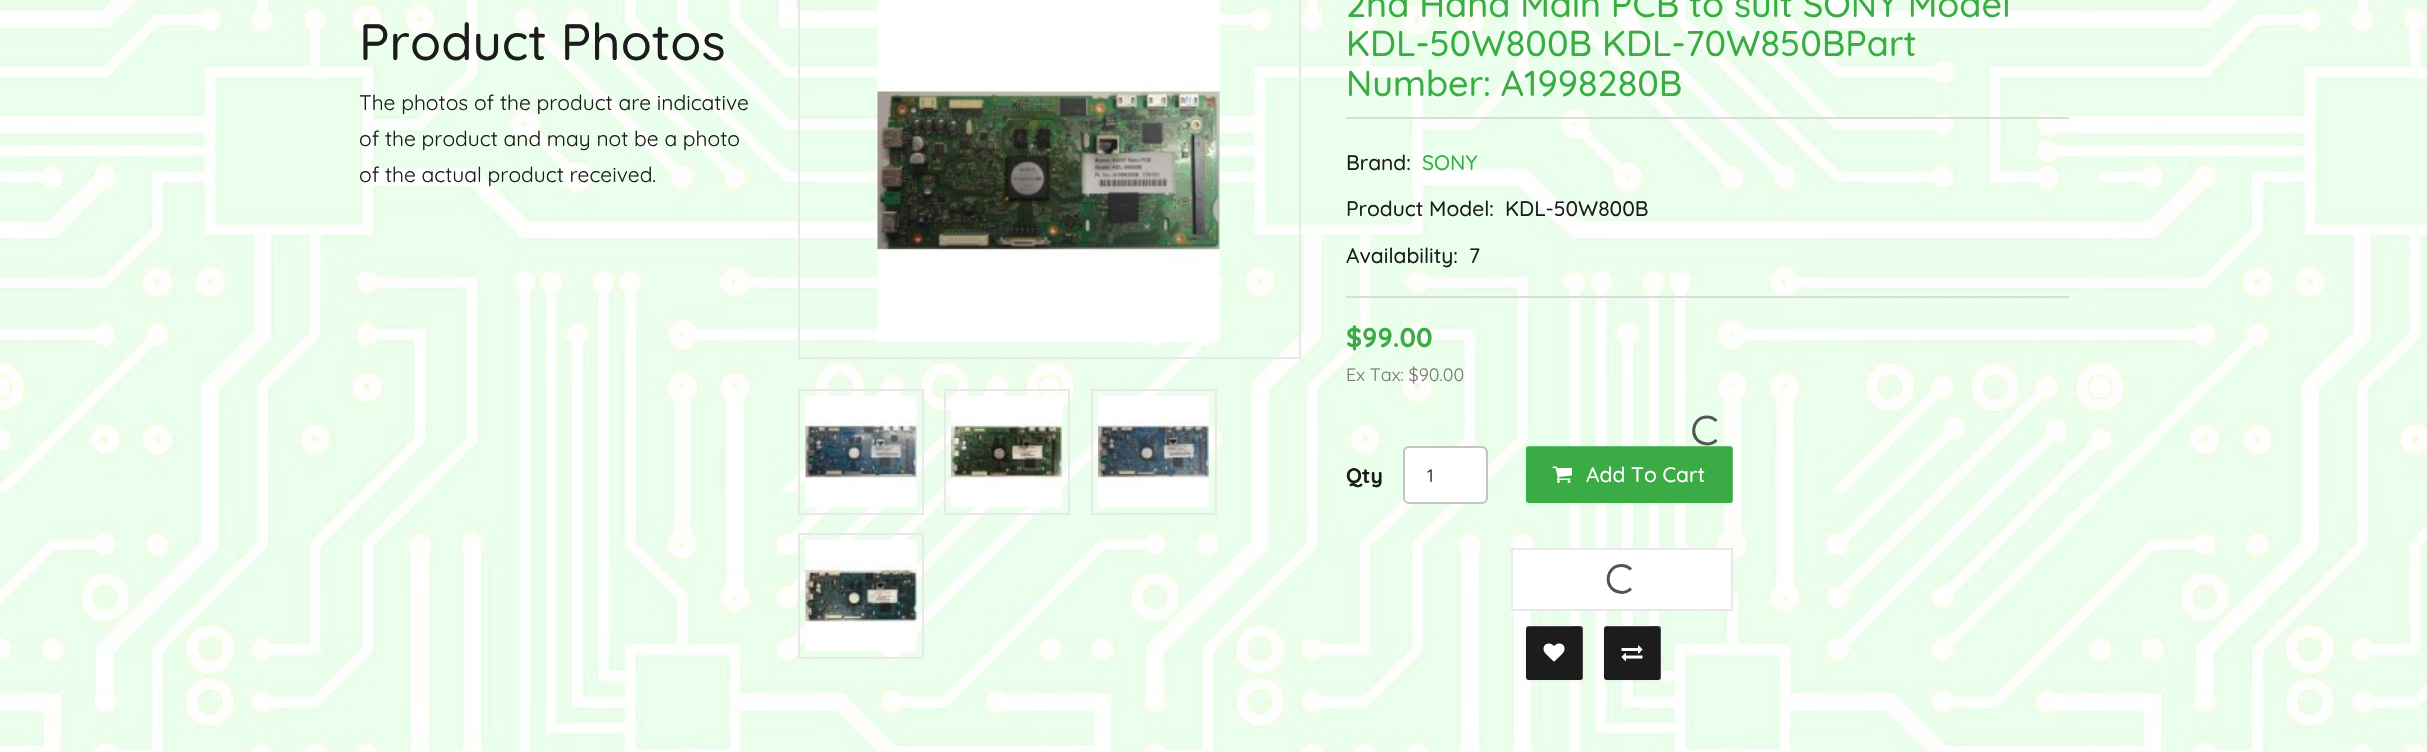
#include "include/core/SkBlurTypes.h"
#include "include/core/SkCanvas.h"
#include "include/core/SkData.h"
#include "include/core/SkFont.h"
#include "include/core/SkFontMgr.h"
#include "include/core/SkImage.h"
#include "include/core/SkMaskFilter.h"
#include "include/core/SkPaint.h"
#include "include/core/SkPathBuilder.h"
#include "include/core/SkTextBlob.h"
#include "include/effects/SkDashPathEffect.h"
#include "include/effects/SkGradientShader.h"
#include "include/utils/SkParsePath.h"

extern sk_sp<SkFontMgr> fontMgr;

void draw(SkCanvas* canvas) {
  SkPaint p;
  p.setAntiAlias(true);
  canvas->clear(SK_ColorWHITE);
  canvas->drawImageRect(SkImages::DeferredFromEncodedData(SkData::MakeFromFileName("images/1.png")), SkRect::MakeLTRB(0, 0, 2427, 752), SkSamplingOptions());
  p.setStyle(SkPaint::kStroke_Style);
  p.setStrokeWidth(2);
  p.setColor(SkColorSetRGB(233, 233, 233));
  canvas->drawRect(SkRect::MakeLTRB(799, -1, 1300, 358), p);
  canvas->drawImageRect(SkImages::DeferredFromEncodedData(SkData::MakeFromFileName("images/2.png")), SkRect::MakeLTRB(877, 0, 1220, 342), SkSamplingOptions());
  canvas->drawRect(SkRect::MakeLTRB(799, 390, 923, 514), p);
  canvas->drawImageRect(SkImages::DeferredFromEncodedData(SkData::MakeFromFileName("images/3.png")), SkRect::MakeLTRB(805, 396, 917, 507), SkSamplingOptions());
  canvas->drawRect(SkRect::MakeLTRB(945, 390, 1069, 514), p);
  canvas->drawImageRect(SkImages::DeferredFromEncodedData(SkData::MakeFromFileName("images/4.png")), SkRect::MakeLTRB(951, 396, 1062, 507), SkSamplingOptions());
  canvas->drawRect(SkRect::MakeLTRB(1092, 390, 1216, 514), p);
  canvas->drawImageRect(SkImages::DeferredFromEncodedData(SkData::MakeFromFileName("images/5.png")), SkRect::MakeLTRB(1098, 396, 1209, 507), SkSamplingOptions());
  canvas->drawRect(SkRect::MakeLTRB(799, 534, 923, 658), p);
  canvas->drawImageRect(SkImages::DeferredFromEncodedData(SkData::MakeFromFileName("images/6.png")), SkRect::MakeLTRB(805, 540, 917, 651), SkSamplingOptions());
  p.setStyle(SkPaint::kFill_Style);
  p.setColor(SkColorSetRGB(219, 219, 219));
  canvas->drawRect(SkRect::MakeLTRB(1346, 117, 2069, 119), p);
  canvas->drawRect(SkRect::MakeLTRB(1346, 296, 2069, 298), p);
  p.setColor(SkColorSetARGB(13, 0, 0, 0));
  p.setMaskFilter(SkMaskFilter::MakeBlur(kNormal_SkBlurStyle, 1.5f));
  canvas->drawRoundRect(SkRect::MakeLTRB(1526, 447, 1733, 504), 3, 3, p);
  p.setMaskFilter(nullptr);
  p.setStyle(SkPaint::kStroke_Style);
  p.setStrokeWidth(3);
  p.setColor(SkColorSetRGB(84, 84, 84));
  canvas->drawPath(SkPathBuilder().moveTo(1716.5f, 440).cubicTo(1713.5f, 443, 1708.5f, 444.5f, 1704.5f, 443.5f).cubicTo(1688.5f, 440.5f, 1691, 417, 1707, 417).cubicTo(1710.5f, 417, 1714, 418.5f, 1716.5f, 421).detach(), p);
  p.setStyle(SkPaint::kFill_Style);
  p.setColor(SK_ColorWHITE);
  canvas->drawRoundRect(SkRect::MakeLTRB(1403, 446, 1488, 504), 6, 6, p);
  p.setColor(SkColorSetRGB(236, 236, 236));
  canvas->drawPath(SkPathBuilder().moveTo(1408, 448).lineTo(1457, 448).cubicTo(1488, 448, 1486, 442, 1486, 469).lineTo(1486, 501).cubicTo(1487, 500, 1487, 499, 1487, 498).lineTo(1487, 452).cubicTo(1487, 449, 1485, 447, 1482, 447).lineTo(1409, 447).cubicTo(1406, 447, 1404, 449, 1404, 452).lineTo(1404, 453).cubicTo(1404, 451, 1406, 448, 1408, 448).close().detach(), p);
  p.setStyle(SkPaint::kStroke_Style);
  p.setStrokeWidth(2);
  p.setColor(SkColorSetRGB(196, 196, 196));
  canvas->drawRoundRect(SkRect::MakeLTRB(1404, 447, 1487, 503), 5, 5, p);
  p.setStyle(SkPaint::kFill_Style);
  p.setColor(SkColorSetRGB(59, 172, 69));
  canvas->drawRoundRect(SkRect::MakeLTRB(1526, 446, 1733, 503), 3, 3, p);
  p.setColor(SkColorSetARGB(51, 255, 255, 255));
  canvas->drawPath(SkPathBuilder().moveTo(1528, 447).lineTo(1730, 447).cubicTo(1731, 447, 1732, 448, 1732, 450).lineTo(1732, 502).cubicTo(1733, 502, 1733, 501, 1733, 500).lineTo(1733, 449).cubicTo(1733, 447, 1732, 446, 1730, 446).lineTo(1529, 446).cubicTo(1527, 446, 1526, 447, 1526, 449).lineTo(1526, 450).cubicTo(1526, 448, 1527, 447, 1528, 447).close().detach(), p);
  canvas->drawImageRect(SkImages::DeferredFromEncodedData(SkData::MakeFromFileName("images/7.png")), SkRect::MakeLTRB(1552, 466, 1572, 483), SkSamplingOptions());
  p.setColor(SK_ColorWHITE);
  canvas->drawRect(SkRect::MakeLTRB(1512, 549, 1732, 610), p);
  p.setStyle(SkPaint::kStroke_Style);
  p.setColor(SkColorSetRGB(233, 233, 233));
  canvas->drawRect(SkRect::MakeLTRB(1512, 549, 1732, 610), p);
  p.setStrokeWidth(3);
  p.setColor(SkColorSetRGB(84, 84, 84));
  canvas->drawPath(SkPathBuilder().moveTo(1631, 588.5f).cubicTo(1628, 591.5f, 1623, 593, 1619, 592).cubicTo(1603, 589, 1605.5f, 565.5f, 1621.5f, 565.5f).cubicTo(1625, 565.5f, 1628.5f, 567, 1631, 569.5f).detach(), p);
  p.setStyle(SkPaint::kFill_Style);
  p.setColor(SkColorSetARGB(13, 0, 0, 0));
  p.setMaskFilter(SkMaskFilter::MakeBlur(kNormal_SkBlurStyle, 1.5f));
  canvas->drawRoundRect(SkRect::MakeLTRB(1526, 627, 1583, 681), 3, 3, p);
  p.setMaskFilter(nullptr);
  p.setColor(SkColorSetRGB(28, 28, 28));
  canvas->drawRoundRect(SkRect::MakeLTRB(1526, 626, 1583, 680), 3, 3, p);
  p.setColor(SkColorSetARGB(51, 255, 255, 255));
  canvas->drawPath(SkPathBuilder().moveTo(1528, 627).lineTo(1571, 627).cubicTo(1574, 627, 1582, 625, 1582, 630).lineTo(1582, 679).cubicTo(1583, 679, 1583, 678, 1583, 677).lineTo(1583, 629).cubicTo(1583, 627, 1582, 626, 1580, 626).lineTo(1529, 626).cubicTo(1527, 626, 1526, 627, 1526, 629).lineTo(1526, 630).cubicTo(1526, 628, 1527, 627, 1528, 627).close().detach(), p);
  canvas->drawImageRect(SkImages::DeferredFromEncodedData(SkData::MakeFromFileName("images/8.png")), SkRect::MakeLTRB(1543, 643, 1565, 662), SkSamplingOptions());
  p.setColor(SkColorSetARGB(13, 0, 0, 0));
  p.setMaskFilter(SkMaskFilter::MakeBlur(kNormal_SkBlurStyle, 1.5f));
  canvas->drawRoundRect(SkRect::MakeLTRB(1604, 627, 1661, 681), 3, 3, p);
  p.setMaskFilter(nullptr);
  p.setColor(SkColorSetRGB(28, 28, 28));
  canvas->drawRoundRect(SkRect::MakeLTRB(1604, 626, 1661, 680), 3, 3, p);
  p.setColor(SkColorSetARGB(51, 255, 255, 255));
  canvas->drawPath(SkPathBuilder().moveTo(1606, 627).lineTo(1649, 627).cubicTo(1652, 627, 1660, 625, 1660, 630).lineTo(1660, 679).cubicTo(1661, 679, 1661, 678, 1661, 677).lineTo(1661, 629).cubicTo(1661, 627, 1660, 626, 1658, 626).lineTo(1607, 626).cubicTo(1605, 626, 1604, 627, 1604, 629).lineTo(1604, 630).cubicTo(1604, 628, 1605, 627, 1606, 627).close().detach(), p);
  canvas->drawImageRect(SkImages::DeferredFromEncodedData(SkData::MakeFromFileName("images/9.png")), SkRect::MakeLTRB(1621, 645, 1643, 662), SkSamplingOptions());
  SkFont font1(fontMgr->matchFamilyStyle("Quicksand", SkFontStyle(500, SkFontStyle::kNormal_Width, SkFontStyle::kUpright_Slant)), 51);
  font1.setSubpixel(true);
  p.setColor(SkColorSetRGB(28, 28, 28));
  canvas->drawString("Product Photos", 359, 60, font1, p);
  SkFont font2(fontMgr->matchFamilyStyle("Quicksand", SkFontStyle::Normal()), 21);
  font2.setSubpixel(true);
  canvas->drawString("The photos of the product are indicative", 359, 110, font2, p);
  canvas->drawString("of the product and may not be a photo", 359, 146, font2, p);
  canvas->drawString("of the actual product received.", 359, 182, font2, p);
  SkFont font3(fontMgr->matchFamilyStyle("Quicksand", SkFontStyle(500, SkFontStyle::kNormal_Width, SkFontStyle::kUpright_Slant)), 36);
  font3.setSubpixel(true);
  p.setColor(SkColorSetRGB(59, 172, 69));
  canvas->drawString("2nd Hand Main PCB to suit SONY Model", 1346, 17, font3, p);
  canvas->drawString("KDL-50W800B KDL-70W850BPart", 1346, 56, font3, p);
  canvas->drawString("Number: A1998280B", 1346, 96, font3, p);
  SkFont font4(fontMgr->matchFamilyStyle("Quicksand", SkFontStyle(500, SkFontStyle::kNormal_Width, SkFontStyle::kUpright_Slant)), 21);
  font4.setSubpixel(true);
  p.setColor(SkColorSetRGB(28, 28, 28));
  canvas->drawString("Brand:", 1346, 170, font4, p);
  p.setColor(SkColorSetRGB(59, 172, 69));
  canvas->drawString("SONY", 1422, 170, font4, p);
  p.setColor(SkColorSetRGB(28, 28, 28));
  canvas->drawString("Product Model:", 1346, 216, font4, p);
  canvas->drawString("KDL-50W800B", 1505, 216, font4, p);
  canvas->drawString("Availability:", 1346, 263, font4, p);
  canvas->drawString("7", 1469, 263, font4, p);
  SkFont font5(fontMgr->matchFamilyStyle("Quicksand", SkFontStyle::Bold()), 27);
  font5.setSubpixel(true);
  p.setColor(SkColorSetRGB(59, 172, 69));
  canvas->drawString("$99.00", 1346, 347, font5, p);
  SkFont font6(fontMgr->matchFamilyStyle("Quicksand", SkFontStyle::Normal()), 18);
  font6.setSubpixel(true);
  p.setColor(SkColorSetRGB(119, 119, 119));
  canvas->drawString("Ex Tax: $90.00", 1346, 381, font6, p);
  SkFont font7(fontMgr->matchFamilyStyle("Quicksand", SkFontStyle::Bold()), 21);
  font7.setSubpixel(true);
  p.setColor(SkColorSetRGB(28, 28, 28));
  canvas->drawString("Qty", 1346, 483, font7, p);
  canvas->drawString("1", 1427, 482, font6, p);
  p.setColor(SK_ColorWHITE);
  canvas->drawString("Add To Cart", 1586, 482, font4, p);
}
